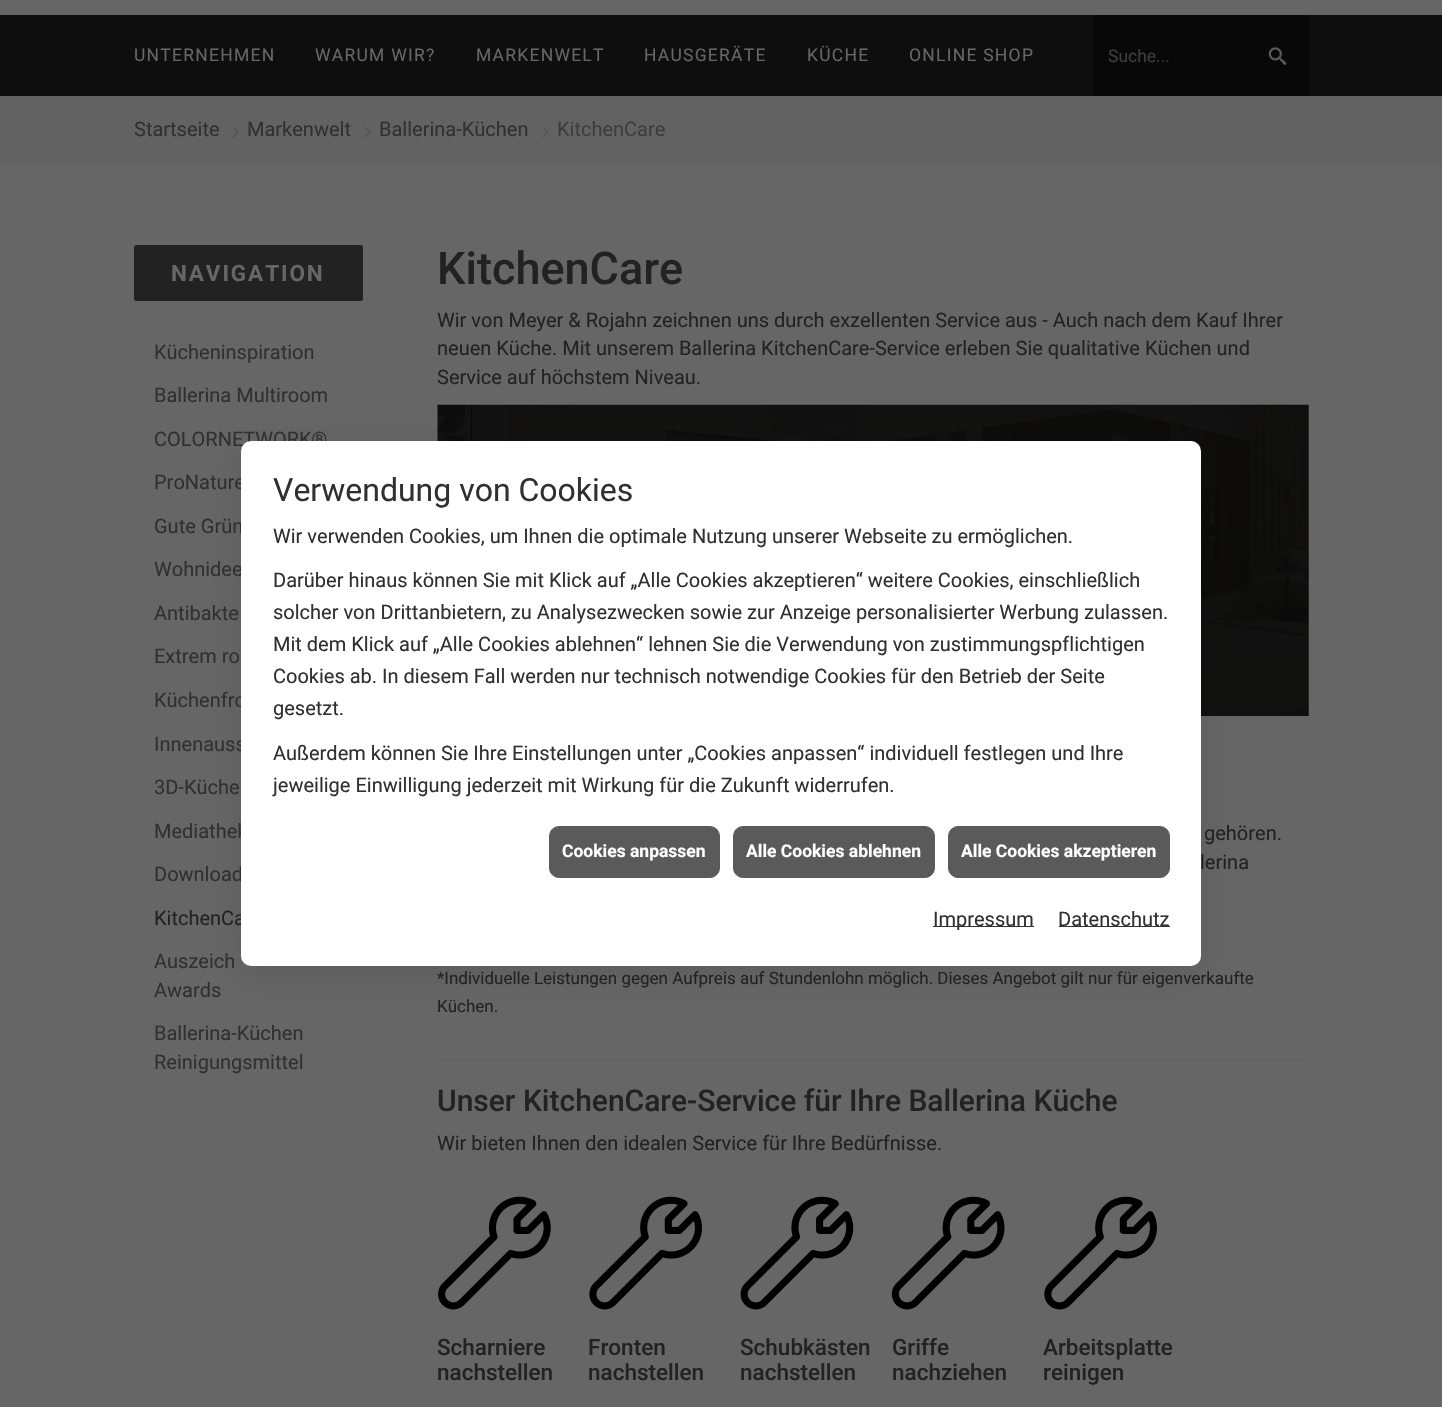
#include "include/core/SkBlurTypes.h"
#include "include/core/SkCanvas.h"
#include "include/core/SkData.h"
#include "include/core/SkFont.h"
#include "include/core/SkFontMgr.h"
#include "include/core/SkImage.h"
#include "include/core/SkMaskFilter.h"
#include "include/core/SkPaint.h"
#include "include/core/SkPathBuilder.h"
#include "include/core/SkTextBlob.h"
#include "include/effects/SkDashPathEffect.h"
#include "include/effects/SkGradientShader.h"
#include "include/utils/SkParsePath.h"

extern sk_sp<SkFontMgr> fontMgr;

void draw(SkCanvas* canvas) {
  SkPaint p;
  p.setAntiAlias(true);
  auto spacedText = [&](const char* s, float x, float y, const SkFont& font, const SkPaint& ink, float letter, float word) {
    std::vector<SkGlyphID> glyphs(font.countText(s, strlen(s), SkTextEncoding::kUTF8));
    std::vector<float> xs(glyphs.size());
    font.textToGlyphs(s, strlen(s), SkTextEncoding::kUTF8, glyphs);
    font.getXPos(glyphs, xs, x);
    float extra = 0;
    for (size_t i = 0; i < glyphs.size(); i++) {
      xs[i] += extra;
      extra += letter + word * (glyphs[i] == font.unicharToGlyph(' '));
    }
    canvas->drawTextBlob(SkTextBlob::MakeFromPosHGlyphs(glyphs, xs, y, font), 0, 0, ink);
  };
  canvas->clear(SkColorSetRGB(102, 102, 102));
  p.setColor(SkColorSetRGB(14, 14, 14));
  canvas->drawRect(SkRect::MakeLTRB(0, 15, 1442, 96), p);
  p.setColor(SkColorSetRGB(8, 8, 8));
  canvas->drawRect(SkRect::MakeLTRB(1094, 15, 1309, 96), p);
  canvas->drawImageRect(SkImages::DeferredFromEncodedData(SkData::MakeFromFileName("images/1.png")), SkRect::MakeLTRB(1268, 47, 1287, 65), SkSamplingOptions());
  p.setColor(SkColorSetRGB(98, 98, 98));
  canvas->drawRect(SkRect::MakeLTRB(0, 96, 1442, 165), p);
  p.setColor(SkColorSetRGB(82, 82, 82));
  canvas->drawPath(SkPathBuilder().moveTo(233.5f, 126.5f).lineTo(239, 132.5f).lineTo(238, 133).lineTo(232.5f, 127.5f).close().detach(), p);
  canvas->drawPath(SkPathBuilder().moveTo(238, 131.5f).lineTo(239, 132.5f).lineTo(233.5f, 138).lineTo(232.5f, 137).close().detach(), p);
  canvas->drawPath(SkPathBuilder().moveTo(365, 126.5f).lineTo(371, 132.5f).lineTo(370, 133).lineTo(364.5f, 127.5f).close().detach(), p);
  canvas->drawPath(SkPathBuilder().moveTo(370, 131.5f).lineTo(371, 132.5f).lineTo(365, 138).lineTo(364.5f, 137).close().detach(), p);
  canvas->drawPath(SkPathBuilder().moveTo(542.5f, 126.5f).lineTo(548.5f, 132.5f).lineTo(547.5f, 133).lineTo(542, 127.5f).close().detach(), p);
  canvas->drawPath(SkPathBuilder().moveTo(547.5f, 131.5f).lineTo(548.5f, 132.5f).lineTo(542.5f, 138).lineTo(542, 137).close().detach(), p);
  p.setColor(SkColorSetRGB(34, 34, 34));
  canvas->drawRoundRect(SkRect::MakeLTRB(134, 245, 363, 301), 2.5f, 2.5f, p);
  canvas->drawImageRect(SkImages::DeferredFromEncodedData(SkData::MakeFromFileName("images/2.png")), SkRect::MakeLTRB(437, 404, 1309, 716), SkSamplingOptions());
  p.setColor(SkColorSetRGB(95, 95, 95));
  canvas->drawRect(SkRect::MakeLTRB(438, 1059, 1309, 1060), p);
  canvas->drawImageRect(SkImages::DeferredFromEncodedData(SkData::MakeFromFileName("images/3.png")), SkRect::MakeLTRB(438, 1196, 551, 1310), SkSamplingOptions());
  canvas->drawImageRect(SkImages::DeferredFromEncodedData(SkData::MakeFromFileName("images/4.png")), SkRect::MakeLTRB(589, 1196, 702, 1310), SkSamplingOptions());
  canvas->drawImageRect(SkImages::DeferredFromEncodedData(SkData::MakeFromFileName("images/5.png")), SkRect::MakeLTRB(740, 1196, 854, 1310), SkSamplingOptions());
  canvas->drawImageRect(SkImages::DeferredFromEncodedData(SkData::MakeFromFileName("images/6.png")), SkRect::MakeLTRB(891, 1196, 1005, 1310), SkSamplingOptions());
  canvas->drawImageRect(SkImages::DeferredFromEncodedData(SkData::MakeFromFileName("images/4.png")), SkRect::MakeLTRB(1044, 1196, 1157, 1310), SkSamplingOptions());
  p.setColor(SkColorSetARGB(26, 0, 0, 0));
  p.setMaskFilter(SkMaskFilter::MakeBlur(kNormal_SkBlurStyle, 17.5f));
  canvas->drawRoundRect(SkRect::MakeLTRB(241, 449, 1201, 974), 10, 10, p);
  p.setMaskFilter(nullptr);
  SkFont font1(fontMgr->matchFamilyStyle("Roboto", SkFontStyle::Normal()), 17.5f);
  font1.setSubpixel(true);
  p.setColor(SkColorSetRGB(102, 102, 102));
  spacedText("UNTERNEHMEN", 134, 61, font1, p, 1.25f, 0);
  spacedText("WARUM WIR?", 315, 61, font1, p, 1.25f, 0);
  spacedText("MARKENWELT", 476, 61, font1, p, 1.25f, 0);
  spacedText("HAUSGERÄTE", 644, 61, font1, p, 1.25f, 0);
  spacedText("KÜCHE", 807, 61, font1, p, 1.25f, 0);
  spacedText("ONLINE SHOP", 909, 61, font1, p, 1.25f, 0);
  p.setColor(SkColorSetRGB(61, 61, 61));
  canvas->drawString("Suche...", 1108, 62, font1, p);
  SkFont font2(fontMgr->matchFamilyStyle("Roboto", SkFontStyle::Normal()), 20);
  font2.setSubpixel(true);
  p.setColor(SkColorSetRGB(48, 48, 48));
  canvas->drawString("Startseite", 134, 136, font2, p);
  canvas->drawString("Markenwelt", 247, 136, font2, p);
  canvas->drawString("Ballerina-Küchen", 379, 136, font2, p);
  p.setColor(SkColorSetRGB(61, 61, 61));
  canvas->drawString("KitchenCare", 557, 136, font2, p);
  SkFont font3(fontMgr->matchFamilyStyle("Roboto", SkFontStyle::Bold()), 22.5f);
  font3.setSubpixel(true);
  p.setColor(SkColorSetRGB(102, 102, 102));
  spacedText("NAVIGATION", 171, 281, font3, p, 1.9f, 0);
  p.setColor(SkColorSetRGB(48, 48, 48));
  canvas->drawString("Kücheninspiration", 154, 359, font2, p);
  canvas->drawString("Ballerina Multiroom", 154, 402, font2, p);
  canvas->drawString("COLORNETWORK®", 154, 446, font2, p);
  canvas->drawString("ProNature", 154, 489, font2, p);
  canvas->drawString("Gute Grün", 154, 533, font2, p);
  canvas->drawString("Wohnidee", 154, 576, font2, p);
  canvas->drawString("Antibakte", 154, 620, font2, p);
  canvas->drawString("Extrem ro", 154, 663, font2, p);
  canvas->drawString("Küchenfro", 154, 707, font2, p);
  canvas->drawString("Innenauss", 154, 751, font2, p);
  canvas->drawString("3D-Küche", 154, 794, font2, p);
  canvas->drawString("Mediathek", 154, 838, font2, p);
  canvas->drawString("Download", 154, 881, font2, p);
  p.setColor(SkColorSetRGB(34, 34, 34));
  canvas->drawString("KitchenCa", 154, 925, font2, p);
  p.setColor(SkColorSetRGB(48, 48, 48));
  canvas->drawString("Auszeich", 154, 968, font2, p);
  canvas->drawString("Awards", 154, 997, font2, p);
  canvas->drawString("Ballerina-Küchen", 154, 1040, font2, p);
  canvas->drawString("Reinigungsmittel", 154, 1069, font2, p);
  SkFont font4(fontMgr->matchFamilyStyle("Roboto", SkFontStyle(500, SkFontStyle::kNormal_Width, SkFontStyle::kUpright_Slant)), 45);
  font4.setSubpixel(true);
  p.setColor(SkColorSetRGB(34, 34, 34));
  canvas->drawString("KitchenCare", 437, 284, font4, p);
  canvas->drawString("Wir von Meyer & Rojahn zeichnen uns durch exzellenten Service aus - Auch nach dem Kauf Ihrer", 437, 327, font2, p);
  canvas->drawString("neuen Küche. Mit unserem Ballerina KitchenCare-Service erleben Sie qualitative Küchen und", 437, 355, font2, p);
  canvas->drawString("Service auf höchstem Niveau.", 437, 384, font2, p);
  canvas->drawString("gehören.", 1204, 840, font2, p);
  canvas->drawString("lerina", 1200, 869, font2, p);
  SkFont font5(fontMgr->matchFamilyStyle("Roboto", SkFontStyle::Normal()), 17);
  font5.setSubpixel(true);
  canvas->drawString("*Individuelle Leistungen gegen Aufpreis auf Stundenlohn möglich. Dieses Angebot gilt nur für eigenverkaufte", 437, 984, font5, p);
  canvas->drawString("Küchen.", 437, 1012, font5, p);
  SkFont font6(fontMgr->matchFamilyStyle("Roboto", SkFontStyle(500, SkFontStyle::kNormal_Width, SkFontStyle::kUpright_Slant)), 30);
  font6.setSubpixel(true);
  canvas->drawString("Unser KitchenCare-Service für Ihre Ballerina Küche", 437, 1111, font6, p);
  canvas->drawString("Wir bieten Ihnen den idealen Service für Ihre Bedürfnisse.", 437, 1150, font2, p);
  SkFont font7(fontMgr->matchFamilyStyle("Roboto", SkFontStyle(500, SkFontStyle::kNormal_Width, SkFontStyle::kUpright_Slant)), 22.5f);
  font7.setSubpixel(true);
  canvas->drawString("Scharniere", 437, 1355, font7, p);
  canvas->drawString("nachstellen", 437, 1380, font7, p);
  canvas->drawString("Fronten", 588, 1355, font7, p);
  canvas->drawString("nachstellen", 588, 1380, font7, p);
  canvas->drawString("Schubkästen", 740, 1355, font7, p);
  canvas->drawString("nachstellen", 740, 1380, font7, p);
  canvas->drawString("Griffe", 892, 1355, font7, p);
  canvas->drawString("nachziehen", 892, 1380, font7, p);
  canvas->drawString("Arbeitsplatte", 1043, 1355, font7, p);
  canvas->drawString("reinigen", 1043, 1380, font7, p);
  p.setColor(SK_ColorWHITE);
  canvas->drawRoundRect(SkRect::MakeLTRB(241, 441, 1201, 966), 10, 10, p);
  SkFont font8(fontMgr->matchFamilyStyle("Roboto", SkFontStyle::Normal()), 32);
  font8.setSubpixel(true);
  p.setColor(SkColorSetRGB(48, 48, 48));
  canvas->drawString("Verwendung von Cookies", 273, 501, font8, p);
  canvas->drawString("Wir verwenden Cookies, um Ihnen die optimale Nutzung unserer Webseite zu ermöglichen.", 273, 543, font2, p);
  canvas->drawString("Darüber hinaus können Sie mit Klick auf „Alle Cookies akzeptieren“ weitere Cookies, einschließlich", 273, 587, font2, p);
  canvas->drawString("solcher von Drittanbietern, zu Analysezwecken sowie zur Anzeige personalisierter Werbung zulassen.", 273, 619, font2, p);
  canvas->drawString("Mit dem Klick auf „Alle Cookies ablehnen“ lehnen Sie die Verwendung von zustimmungspflichtigen", 273, 651, font2, p);
  canvas->drawString("Cookies ab. In diesem Fall werden nur technisch notwendige Cookies für den Betrieb der Seite", 273, 683, font2, p);
  canvas->drawString("gesetzt.", 273, 715, font2, p);
  canvas->drawString("Außerdem können Sie Ihre Einstellungen unter „Cookies anpassen“ individuell festlegen und Ihre", 273, 760, font2, p);
  canvas->drawString("jeweilige Einwilligung jederzeit mit Wirkung für die Zukunft widerrufen.", 273, 792, font2, p);
  p.setColor(SkColorSetRGB(90, 90, 90));
  canvas->drawRoundRect(SkRect::MakeLTRB(549.5f, 826.5f, 719.5f, 877.5f), 9.5f, 9.5f, p);
  p.setStyle(SkPaint::kStroke_Style);
  p.setStrokeWidth(1);
  canvas->drawRoundRect(SkRect::MakeLTRB(549.5f, 826.5f, 719.5f, 877.5f), 9.5f, 9.5f, p);
  SkFont font9(fontMgr->matchFamilyStyle("Roboto", SkFontStyle::Bold()), 17.5f);
  font9.setSubpixel(true);
  p.setStyle(SkPaint::kFill_Style);
  p.setColor(SK_ColorWHITE);
  canvas->drawString("Cookies anpassen", 562, 857, font9, p);
  p.setColor(SkColorSetRGB(90, 90, 90));
  canvas->drawRoundRect(SkRect::MakeLTRB(733.5f, 826.5f, 934.5f, 877.5f), 9.5f, 9.5f, p);
  p.setStyle(SkPaint::kStroke_Style);
  canvas->drawRoundRect(SkRect::MakeLTRB(733.5f, 826.5f, 934.5f, 877.5f), 9.5f, 9.5f, p);
  p.setStyle(SkPaint::kFill_Style);
  p.setColor(SK_ColorWHITE);
  canvas->drawString("Alle Cookies ablehnen", 746, 857, font9, p);
  p.setColor(SkColorSetRGB(90, 90, 90));
  canvas->drawRoundRect(SkRect::MakeLTRB(948.5f, 826.5f, 1169.5f, 877.5f), 9.5f, 9.5f, p);
  p.setStyle(SkPaint::kStroke_Style);
  canvas->drawRoundRect(SkRect::MakeLTRB(948.5f, 826.5f, 1169.5f, 877.5f), 9.5f, 9.5f, p);
  p.setStyle(SkPaint::kFill_Style);
  p.setColor(SK_ColorWHITE);
  canvas->drawString("Alle Cookies akzeptieren", 961, 857, font9, p);
  p.setColor(SkColorSetRGB(51, 51, 51));
  canvas->drawRect(SkRect::MakeLTRB(933, 926, 1034, 927), p);
  p.setColor(SkColorSetRGB(48, 48, 48));
  canvas->drawString("Impressum", 933, 926, font2, p);
  p.setColor(SkColorSetRGB(51, 51, 51));
  canvas->drawRect(SkRect::MakeLTRB(1059, 926, 1170, 927), p);
  p.setColor(SkColorSetRGB(48, 48, 48));
  canvas->drawString("Datenschutz", 1058, 926, font2, p);
}
